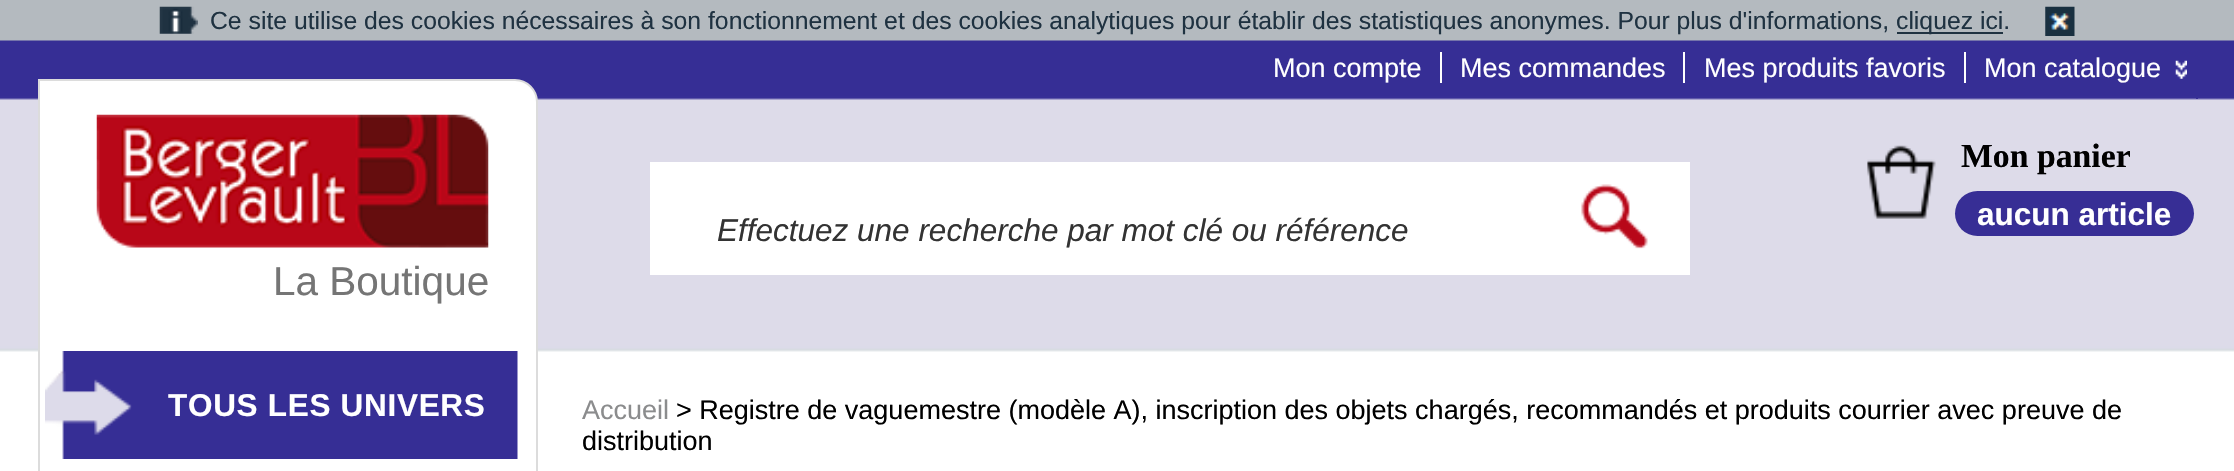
#include "include/core/SkBlurTypes.h"
#include "include/core/SkCanvas.h"
#include "include/core/SkData.h"
#include "include/core/SkFont.h"
#include "include/core/SkFontMgr.h"
#include "include/core/SkImage.h"
#include "include/core/SkMaskFilter.h"
#include "include/core/SkPaint.h"
#include "include/core/SkPathBuilder.h"
#include "include/core/SkTextBlob.h"
#include "include/effects/SkDashPathEffect.h"
#include "include/effects/SkGradientShader.h"
#include "include/utils/SkParsePath.h"

extern sk_sp<SkFontMgr> fontMgr;

void draw(SkCanvas* canvas) {
  SkPaint p;
  p.setAntiAlias(true);
  auto spacedText = [&](const char* s, float x, float y, const SkFont& font, const SkPaint& ink, float letter, float word) {
    std::vector<SkGlyphID> glyphs(font.countText(s, strlen(s), SkTextEncoding::kUTF8));
    std::vector<float> xs(glyphs.size());
    font.textToGlyphs(s, strlen(s), SkTextEncoding::kUTF8, glyphs);
    font.getXPos(glyphs, xs, x);
    float extra = 0;
    for (size_t i = 0; i < glyphs.size(); i++) {
      xs[i] += extra;
      extra += letter + word * (glyphs[i] == font.unicharToGlyph(' '));
    }
    canvas->drawTextBlob(SkTextBlob::MakeFromPosHGlyphs(glyphs, xs, y, font), 0, 0, ink);
  };
  canvas->clear(SkColorSetRGB(180, 186, 191));
  canvas->drawImageRect(SkImages::DeferredFromEncodedData(SkData::MakeFromFileName("images/1.png")), SkRect::MakeLTRB(159, 6, 198, 34), SkSamplingOptions());
  p.setColor(SkColorSetRGB(31, 50, 65));
  canvas->drawRect(SkRect::MakeLTRB(1897, 32, 2003, 34), p);
  canvas->drawImageRect(SkImages::DeferredFromEncodedData(SkData::MakeFromFileName("images/2.png")), SkRect::MakeLTRB(2045, 6, 2075, 36), SkSamplingOptions());
  p.setColor(SK_ColorWHITE);
  canvas->drawRect(SkRect::MakeLTRB(0, 352, 2234, 471), p);
  canvas->drawImageRect(SkImages::DeferredFromEncodedData(SkData::MakeFromFileName("images/3.png")), SkRect::MakeLTRB(0, 40, 2234, 352), SkSamplingOptions());
  canvas->drawRect(SkRect::MakeLTRB(1440, 52, 1442, 83), p);
  canvas->drawRect(SkRect::MakeLTRB(1683, 52, 1685, 83), p);
  canvas->drawRect(SkRect::MakeLTRB(1964, 52, 1966, 83), p);
  p.setColor(SkColorSetRGB(55, 46, 149));
  canvas->drawRect(SkRect::MakeLTRB(2196, 98, 2198, 99), p);
  canvas->drawImageRect(SkImages::DeferredFromEncodedData(SkData::MakeFromFileName("images/4.png")), SkRect::MakeLTRB(2175, 60, 2187, 79), SkSamplingOptions());
  p.setColor(SK_ColorWHITE);
  canvas->drawPath(SkPathBuilder().moveTo(39, 80).lineTo(515, 80).cubicTo(527, 80, 537, 90, 537, 102).lineTo(537, 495).lineTo(61, 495).cubicTo(49, 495, 39, 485, 39, 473).close().detach(), p);
  p.setStyle(SkPaint::kStroke_Style);
  p.setStrokeWidth(2);
  p.setColor(SkColorSetRGB(220, 220, 220));
  canvas->drawPath(SkPathBuilder().moveTo(39, 80).lineTo(515, 80).cubicTo(527, 80, 537, 90, 537, 102).lineTo(537, 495).lineTo(61, 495).cubicTo(49, 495, 39, 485, 39, 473).close().detach(), p);
  canvas->drawImageRect(SkImages::DeferredFromEncodedData(SkData::MakeFromFileName("images/5.png")), SkRect::MakeLTRB(96, 114, 489, 248), SkSamplingOptions());
  canvas->drawImageRect(SkImages::DeferredFromEncodedData(SkData::MakeFromFileName("images/6.png")), SkRect::MakeLTRB(45, 351, 518, 459), SkSamplingOptions());
  canvas->drawImageRect(SkImages::DeferredFromEncodedData(SkData::MakeFromFileName("images/7.png")), SkRect::MakeLTRB(1867, 145, 1936, 219), SkSamplingOptions());
  p.setStyle(SkPaint::kFill_Style);
  p.setColor(SkColorSetRGB(55, 46, 149));
  canvas->drawRoundRect(SkRect::MakeLTRB(1955, 191, 2194, 236), 22.5f, 22.5f, p);
  p.setColor(SK_ColorWHITE);
  canvas->drawRect(SkRect::MakeLTRB(650, 162, 1690, 275), p);
  canvas->drawImageRect(SkImages::DeferredFromEncodedData(SkData::MakeFromFileName("images/8.png")), SkRect::MakeLTRB(1581, 184, 1648, 249), SkSamplingOptions());
  SkFont font1(fontMgr->matchFamilyStyle("Liberation Sans", SkFontStyle::Normal()), 24.75f);
  font1.setSubpixel(true);
  p.setColor(SkColorSetRGB(31, 50, 65));
  canvas->drawString("Ce site utilise des cookies nécessaires à son fonctionnement et des cookies analytiques pour établir des statistiques anonymes. Pour plus d'informations,", 210, 29, font1, p);
  canvas->drawString("cliquez ici.", 1896, 29, font1, p);
  SkFont font2(fontMgr->matchFamilyStyle("Liberation Sans", SkFontStyle::Normal()), 27);
  font2.setSubpixel(true);
  p.setColor(SK_ColorWHITE);
  canvas->drawString("Mon compte", 1273, 77, font2, p);
  canvas->drawString("Mes commandes", 1460, 77, font2, p);
  canvas->drawString("Mes produits favoris", 1704, 77, font2, p);
  canvas->drawString("Mon catalogue", 1984, 77, font2, p);
  SkFont font3(fontMgr->matchFamilyStyle("Liberation Sans", SkFontStyle::Normal()), 40.5f);
  font3.setSubpixel(true);
  p.setColor(SkColorSetRGB(117, 117, 117));
  canvas->drawString("La Boutique", 273, 295, font3, p);
  SkFont font4(fontMgr->matchFamilyStyle("Liberation Sans", SkFontStyle::Bold()), 31.5f);
  font4.setSubpixel(true);
  p.setColor(SK_ColorWHITE);
  spacedText("TOUS LES UNIVERS", 168, 416, font4, p, 0.7f, 0);
  SkFont font5(fontMgr->matchFamilyStyle("Liberation Serif", SkFontStyle::Bold()), 33.75f);
  font5.setSubpixel(true);
  p.setColor(SK_ColorBLACK);
  canvas->drawString("Mon panier", 1961, 167, font5, p);
  p.setColor(SK_ColorWHITE);
  canvas->drawString("aucun article", 1977, 225, font4, p);
  SkFont font6(fontMgr->matchFamilyStyle("Liberation Sans", SkFontStyle::Italic()), 31.5f);
  font6.setSubpixel(true);
  p.setColor(SkColorSetRGB(51, 51, 51));
  canvas->drawString("Effectuez une recherche par mot clé ou référence", 717, 241, font6, p);
  p.setColor(SkColorSetRGB(139, 140, 141));
  canvas->drawString("Accueil", 582, 419, font2, p);
  p.setColor(SK_ColorBLACK);
  canvas->drawString("> Registre de vaguemestre (modèle A), inscription des objets chargés, recommandés et produits courrier avec preuve de", 676, 419, font2, p);
  canvas->drawString("distribution", 582, 450, font2, p);
}
